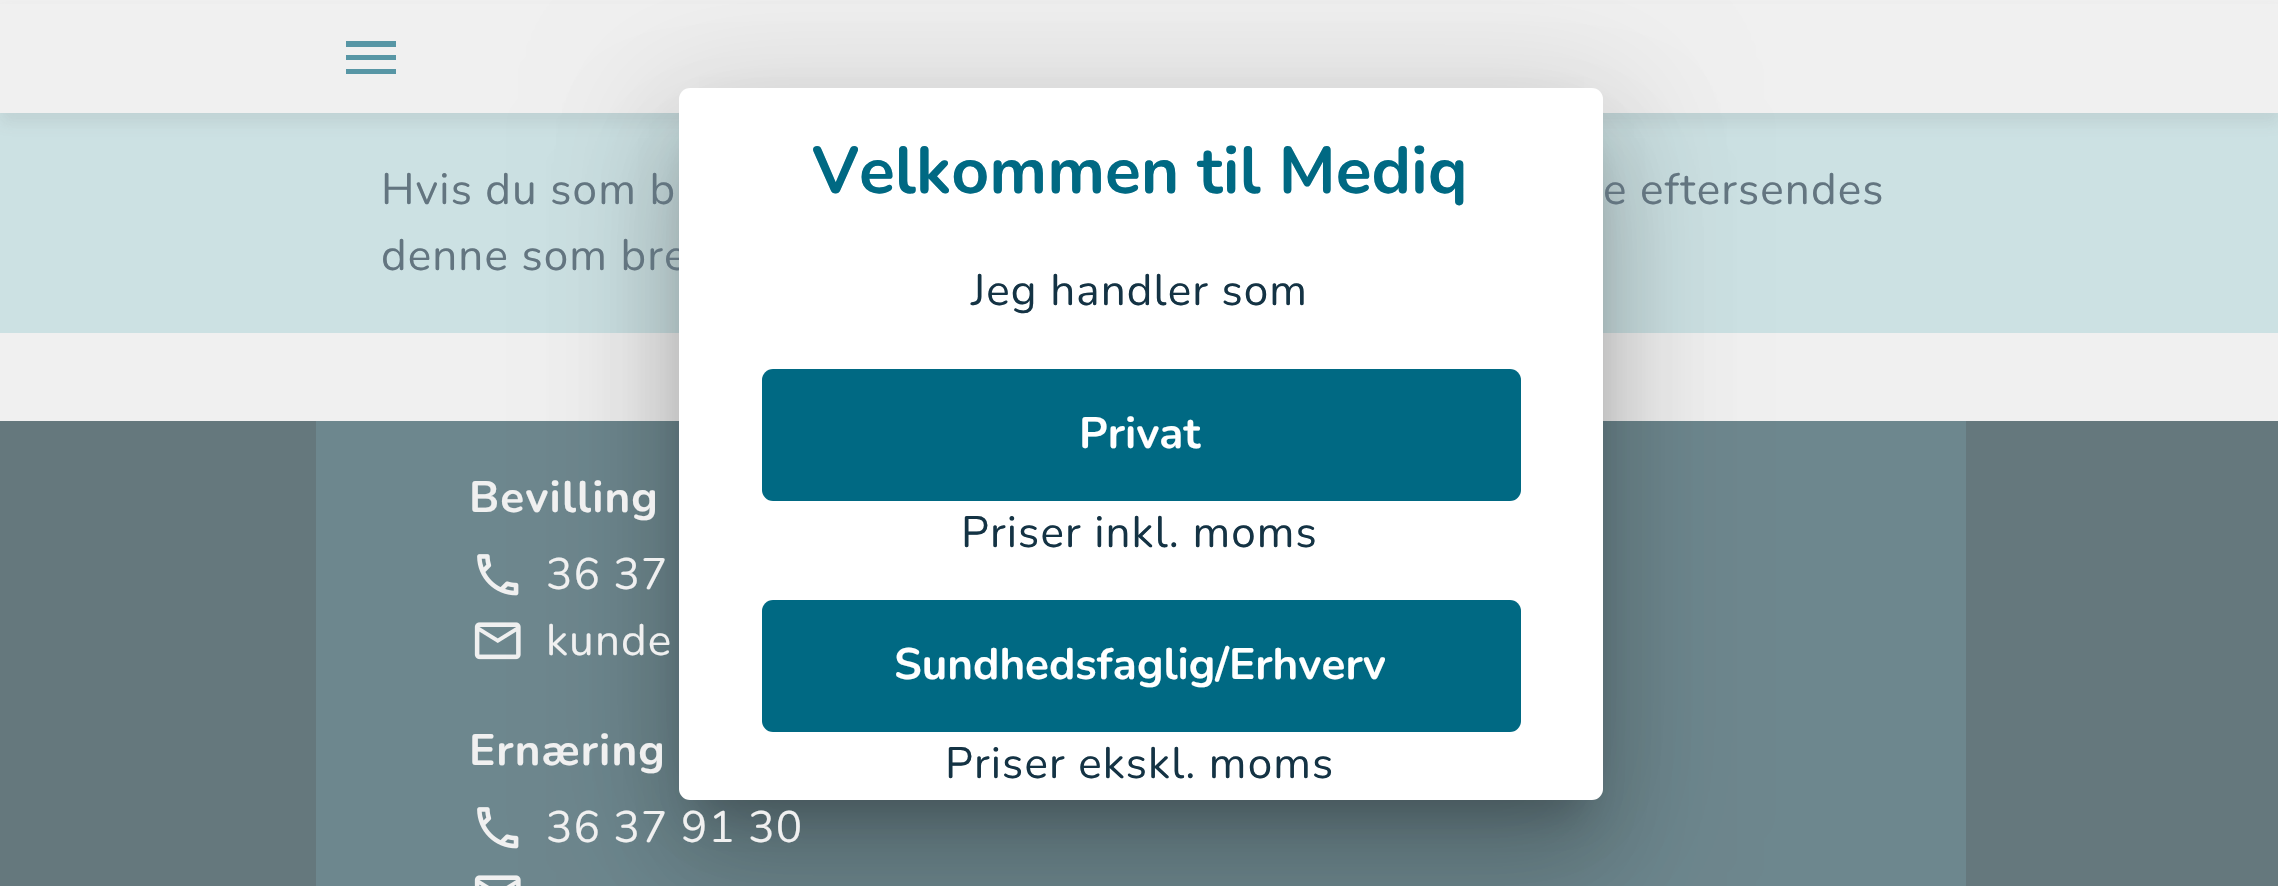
#include "include/core/SkBlurTypes.h"
#include "include/core/SkCanvas.h"
#include "include/core/SkData.h"
#include "include/core/SkFont.h"
#include "include/core/SkFontMgr.h"
#include "include/core/SkImage.h"
#include "include/core/SkMaskFilter.h"
#include "include/core/SkPaint.h"
#include "include/core/SkPathBuilder.h"
#include "include/core/SkTextBlob.h"
#include "include/effects/SkDashPathEffect.h"
#include "include/effects/SkGradientShader.h"
#include "include/utils/SkParsePath.h"

extern sk_sp<SkFontMgr> fontMgr;

void draw(SkCanvas* canvas) {
  SkPaint p;
  p.setAntiAlias(true);
  auto spacedText = [&](const char* s, float x, float y, const SkFont& font, const SkPaint& ink, float letter, float word) {
    std::vector<SkGlyphID> glyphs(font.countText(s, strlen(s), SkTextEncoding::kUTF8));
    std::vector<float> xs(glyphs.size());
    font.textToGlyphs(s, strlen(s), SkTextEncoding::kUTF8, glyphs);
    font.getXPos(glyphs, xs, x);
    float extra = 0;
    for (size_t i = 0; i < glyphs.size(); i++) {
      xs[i] += extra;
      extra += letter + word * (glyphs[i] == font.unicharToGlyph(' '));
    }
    canvas->drawTextBlob(SkTextBlob::MakeFromPosHGlyphs(glyphs, xs, y, font), 0, 0, ink);
  };
  canvas->clear(SkColorSetRGB(240, 240, 240));
  p.setColor(SkColorSetRGB(204, 225, 227));
  canvas->drawRect(SkRect::MakeLTRB(0, 113, 2278, 333), p);
  p.setColor(SkColorSetARGB(26, 87, 87, 87));
  p.setMaskFilter(SkMaskFilter::MakeBlur(kNormal_SkBlurStyle, 7));
  canvas->drawRect(SkRect::MakeLTRB(0, 11, 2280, 124), p);
  p.setMaskFilter(nullptr);
  p.setColor(SkColorSetRGB(240, 240, 240));
  canvas->drawRect(SkRect::MakeLTRB(0, 4, 2278, 113), p);
  p.setColor(SkColorSetRGB(101, 120, 125));
  canvas->drawRect(SkRect::MakeLTRB(0, 421, 2278, 886), p);
  p.setColor(SkColorSetRGB(109, 135, 142));
  canvas->drawRect(SkRect::MakeLTRB(316, 421, 1966, 886), p);
  canvas->drawImageRect(SkImages::DeferredFromEncodedData(SkData::MakeFromFileName("images/1.png")), SkRect::MakeLTRB(477, 554, 519, 596), SkSamplingOptions());
  canvas->drawImageRect(SkImages::DeferredFromEncodedData(SkData::MakeFromFileName("images/2.png")), SkRect::MakeLTRB(474, 622, 521, 660), SkSamplingOptions());
  canvas->drawImageRect(SkImages::DeferredFromEncodedData(SkData::MakeFromFileName("images/1.png")), SkRect::MakeLTRB(477, 807, 519, 849), SkSamplingOptions());
  canvas->drawImageRect(SkImages::DeferredFromEncodedData(SkData::MakeFromFileName("images/3.png")), SkRect::MakeLTRB(474, 875, 521, 886), SkSamplingOptions());
  p.setColor(SkColorSetARGB(31, 0, 0, 0));
  p.setMaskFilter(SkMaskFilter::MakeBlur(kNormal_SkBlurStyle, 63));
  canvas->drawRoundRect(SkRect::MakeLTRB(657, 91, 1625, 847), 33, 33, p);
  p.setMaskFilter(nullptr);
  p.setColor(SkColorSetARGB(36, 0, 0, 0));
  p.setMaskFilter(SkMaskFilter::MakeBlur(kNormal_SkBlurStyle, 52));
  canvas->drawRoundRect(SkRect::MakeLTRB(671, 146, 1612, 875), 19, 19, p);
  p.setMaskFilter(nullptr);
  p.setColor(SkColorSetARGB(51, 0, 0, 0));
  p.setMaskFilter(SkMaskFilter::MakeBlur(kNormal_SkBlurStyle, 20.5f));
  canvas->drawRect(SkRect::MakeLTRB(699, 138, 1584, 811), p);
  p.setMaskFilter(nullptr);
  p.setColor(SkColorSetRGB(87, 150, 165));
  canvas->drawPath(SkPathBuilder().moveTo(346, 74).lineTo(396, 74).lineTo(396, 69).lineTo(346, 69).close().moveTo(346, 60).lineTo(396, 60).lineTo(396, 55).lineTo(346, 55).close().moveTo(346, 41).lineTo(346, 47).lineTo(396, 47).lineTo(396, 41).close().detach(), p);
  SkFont font1(fontMgr->matchFamilyStyle("Nunito", SkFontStyle::Normal()), 44);
  font1.setSubpixel(true);
  p.setColor(SkColorSetRGB(99, 117, 128));
  spacedText("Hvis du som b", 381, 204, font1, p, 1.1f, 0);
  spacedText("e eftersendes", 1603, 204, font1, p, 1.1f, 0);
  spacedText("denne som bre", 381, 270, font1, p, 1.1f, 0);
  p.setColor(SK_ColorWHITE);
  canvas->drawRoundRect(SkRect::MakeLTRB(679, 88, 1603, 800), 11, 11, p);
  p.setColor(SkColorSetRGB(0, 105, 131));
  canvas->drawRoundRect(SkRect::MakeLTRB(762, 600, 1521, 732), 11, 11, p);
  SkFont font2(fontMgr->matchFamilyStyle("Nunito", SkFontStyle::Bold()), 44);
  font2.setSubpixel(true);
  p.setColor(SK_ColorWHITE);
  canvas->drawString("Sundhedsfaglig/Erhverv", 894, 679, font2, p);
  p.setColor(SkColorSetRGB(0, 105, 131));
  canvas->drawRoundRect(SkRect::MakeLTRB(762, 369, 1521, 501), 11, 11, p);
  p.setColor(SK_ColorWHITE);
  canvas->drawString("Privat", 1079, 448, font2, p);
  p.setColor(SkColorSetRGB(20, 51, 68));
  spacedText("Priser ekskl. moms", 945, 778, font1, p, 1.1f, 0);
  spacedText("Priser inkl. moms", 961, 547, font1, p, 1.1f, 0);
  spacedText("Jeg handler som", 971, 305, font1, p, 1.1f, 0);
  SkFont font3(fontMgr->matchFamilyStyle("Nunito", SkFontStyle::Bold()), 66);
  font3.setSubpixel(true);
  p.setColor(SkColorSetRGB(0, 105, 131));
  canvas->drawString("Velkommen til Mediq", 812, 193, font3, p);
  p.setColor(SkColorSetRGB(240, 240, 240));
  spacedText("Bevilling", 469, 512, font2, p, 1.1f, 0);
  spacedText("36 37", 546, 589, font1, p, 1.1f, 0);
  spacedText("kunde", 546, 655, font1, p, 1.1f, 0);
  spacedText("Ernæring", 469, 765, font2, p, 1.1f, 0);
  spacedText("36 37 91 30", 546, 842, font1, p, 1.1f, 0);
}
